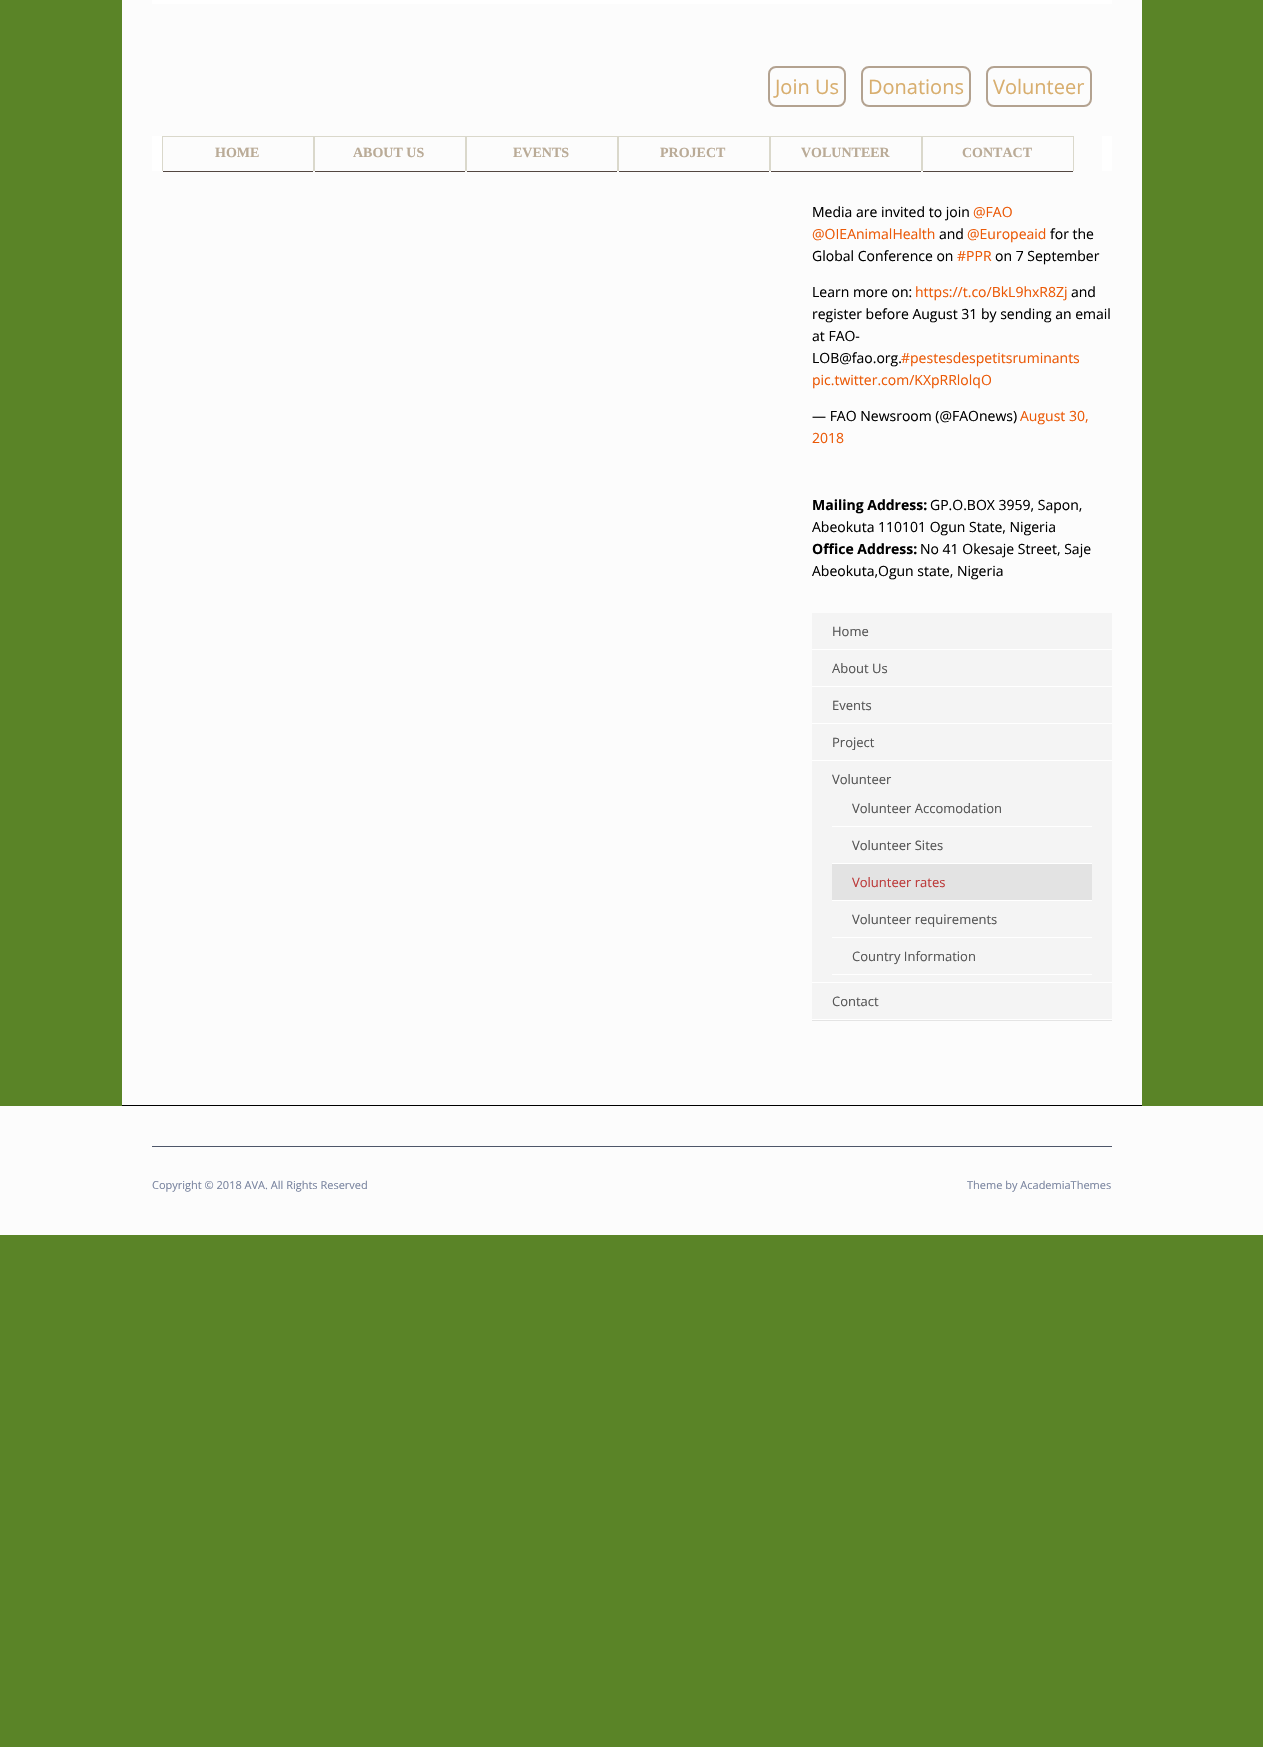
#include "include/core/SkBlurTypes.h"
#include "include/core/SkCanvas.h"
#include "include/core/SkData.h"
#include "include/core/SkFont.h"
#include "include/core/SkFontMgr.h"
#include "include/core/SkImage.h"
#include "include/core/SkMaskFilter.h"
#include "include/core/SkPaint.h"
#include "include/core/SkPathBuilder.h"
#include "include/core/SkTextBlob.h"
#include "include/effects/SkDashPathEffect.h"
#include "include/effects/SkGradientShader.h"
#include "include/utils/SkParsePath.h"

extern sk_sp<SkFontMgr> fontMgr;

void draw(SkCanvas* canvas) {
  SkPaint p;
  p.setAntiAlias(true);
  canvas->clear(SkColorSetRGB(90, 132, 39));
  p.setColor(SkColorSetRGB(252, 252, 252));
  canvas->drawRect(SkRect::MakeLTRB(122, 0, 1142, 1105), p);
  p.setColor(SK_ColorBLACK);
  canvas->drawRect(SkRect::MakeLTRB(122, 1105, 1142, 1106), p);
  p.setColor(SK_ColorWHITE);
  canvas->drawRect(SkRect::MakeLTRB(152, 0, 1112, 4), p);
  p.setStyle(SkPaint::kStroke_Style);
  p.setStrokeWidth(2);
  p.setColor(SkColorSetRGB(179, 162, 144));
  canvas->drawRoundRect(SkRect::MakeLTRB(769, 67, 845, 106), 7, 7, p);
  canvas->drawRoundRect(SkRect::MakeLTRB(862, 67, 970, 106), 7, 7, p);
  canvas->drawRoundRect(SkRect::MakeLTRB(987, 67, 1091, 106), 7, 7, p);
  p.setStyle(SkPaint::kFill_Style);
  p.setColor(SK_ColorWHITE);
  canvas->drawRect(SkRect::MakeLTRB(152, 136, 1112, 171), p);
  p.setColor(SkColorSetRGB(252, 252, 252));
  canvas->drawRect(SkRect::MakeLTRB(163, 136, 1102, 171), p);
  p.setColor(SkColorSetRGB(218, 216, 203));
  canvas->drawRect(SkRect::MakeLTRB(313, 136, 315, 171), p);
  canvas->drawRect(SkRect::MakeLTRB(162, 136, 163, 171), p);
  canvas->drawRect(SkRect::MakeLTRB(163, 136, 313, 137), p);
  p.setColor(SkColorSetRGB(83, 71, 65));
  canvas->drawRect(SkRect::MakeLTRB(163, 171, 313, 172), p);
  p.setColor(SkColorSetRGB(218, 216, 203));
  canvas->drawRect(SkRect::MakeLTRB(465, 136, 467, 171), p);
  canvas->drawRect(SkRect::MakeLTRB(315, 136, 465, 137), p);
  p.setColor(SkColorSetRGB(83, 71, 65));
  canvas->drawRect(SkRect::MakeLTRB(315, 171, 465, 172), p);
  p.setColor(SkColorSetRGB(218, 216, 203));
  canvas->drawRect(SkRect::MakeLTRB(617, 136, 619, 171), p);
  canvas->drawRect(SkRect::MakeLTRB(467, 136, 617, 137), p);
  p.setColor(SkColorSetRGB(83, 71, 65));
  canvas->drawRect(SkRect::MakeLTRB(467, 171, 617, 172), p);
  p.setColor(SkColorSetRGB(218, 216, 203));
  canvas->drawRect(SkRect::MakeLTRB(769, 136, 771, 171), p);
  canvas->drawRect(SkRect::MakeLTRB(619, 136, 769, 137), p);
  p.setColor(SkColorSetRGB(83, 71, 65));
  canvas->drawRect(SkRect::MakeLTRB(619, 171, 769, 172), p);
  p.setColor(SkColorSetRGB(218, 216, 203));
  canvas->drawRect(SkRect::MakeLTRB(921, 136, 923, 171), p);
  canvas->drawRect(SkRect::MakeLTRB(771, 136, 921, 137), p);
  p.setColor(SkColorSetRGB(83, 71, 65));
  canvas->drawRect(SkRect::MakeLTRB(771, 171, 921, 172), p);
  p.setColor(SkColorSetRGB(218, 216, 203));
  canvas->drawRect(SkRect::MakeLTRB(1073, 136, 1074, 171), p);
  canvas->drawRect(SkRect::MakeLTRB(923, 136, 1073, 137), p);
  p.setColor(SkColorSetRGB(83, 71, 65));
  canvas->drawRect(SkRect::MakeLTRB(923, 171, 1073, 172), p);
  p.setColor(SkColorSetRGB(244, 244, 244));
  canvas->drawRect(SkRect::MakeLTRB(812, 613, 1112, 1019), p);
  p.setColor(SkColorSetRGB(228, 228, 228));
  canvas->drawRect(SkRect::MakeLTRB(812, 1020, 1112, 1021), p);
  p.setColor(SK_ColorWHITE);
  canvas->drawRect(SkRect::MakeLTRB(812, 649, 1112, 650), p);
  canvas->drawRect(SkRect::MakeLTRB(812, 686, 1112, 687), p);
  canvas->drawRect(SkRect::MakeLTRB(812, 723, 1112, 724), p);
  canvas->drawRect(SkRect::MakeLTRB(812, 760, 1112, 761), p);
  canvas->drawRect(SkRect::MakeLTRB(812, 982, 1112, 983), p);
  canvas->drawRect(SkRect::MakeLTRB(832, 826, 1092, 827), p);
  canvas->drawRect(SkRect::MakeLTRB(832, 863, 1092, 864), p);
  p.setColor(SkColorSetRGB(227, 227, 227));
  canvas->drawRect(SkRect::MakeLTRB(832, 864, 1092, 900), p);
  p.setColor(SK_ColorWHITE);
  canvas->drawRect(SkRect::MakeLTRB(832, 900, 1092, 901), p);
  canvas->drawRect(SkRect::MakeLTRB(832, 937, 1092, 938), p);
  canvas->drawRect(SkRect::MakeLTRB(832, 974, 1092, 975), p);
  canvas->drawRect(SkRect::MakeLTRB(812, 1019, 1112, 1020), p);
  p.setColor(SkColorSetRGB(252, 252, 252));
  canvas->drawRect(SkRect::MakeLTRB(0, 1106, 1263, 1235), p);
  p.setColor(SkColorSetRGB(78, 86, 105));
  canvas->drawRect(SkRect::MakeLTRB(152, 1146, 1112, 1147), p);
  SkFont font1(fontMgr->matchFamilyStyle("Open Sans", SkFontStyle::Normal()), 20);
  font1.setSubpixel(true);
  p.setColor(SkColorSetRGB(216, 174, 110));
  canvas->drawString("Join Us", 775, 94, font1, p);
  canvas->drawString("Donations", 868, 94, font1, p);
  canvas->drawString("Volunteer", 993, 94, font1, p);
  SkFont font2(fontMgr->matchFamilyStyle("Liberation Serif", SkFontStyle::Bold()), 14);
  font2.setSubpixel(true);
  p.setColor(SkColorSetRGB(186, 171, 151));
  canvas->drawString("HOME", 215, 157, font2, p);
  canvas->drawString("ABOUT US", 353, 157, font2, p);
  canvas->drawString("EVENTS", 513, 157, font2, p);
  canvas->drawString("PROJECT", 660, 157, font2, p);
  canvas->drawString("VOLUNTEER", 801, 157, font2, p);
  canvas->drawString("CONTACT", 962, 157, font2, p);
  SkFont font3(fontMgr->matchFamilyStyle("Open Sans", SkFontStyle::Normal()), 14);
  font3.setSubpixel(true);
  p.setColor(SK_ColorBLACK);
  canvas->drawString("Media are invited to join", 812, 217, font3, p);
  p.setColor(SkColorSetRGB(235, 89, 6));
  canvas->drawString("@FAO", 973, 217, font3, p);
  canvas->drawString("@OIEAnimalHealth", 812, 239, font3, p);
  p.setColor(SK_ColorBLACK);
  canvas->drawString("and", 939, 239, font3, p);
  p.setColor(SkColorSetRGB(235, 89, 6));
  canvas->drawString("@Europeaid", 967, 239, font3, p);
  p.setColor(SK_ColorBLACK);
  canvas->drawString("for the", 1050, 239, font3, p);
  canvas->drawString("Global Conference on", 812, 261, font3, p);
  p.setColor(SkColorSetRGB(235, 89, 6));
  canvas->drawString("#PPR", 957, 261, font3, p);
  p.setColor(SK_ColorBLACK);
  canvas->drawString("on 7 September", 995, 261, font3, p);
  canvas->drawString("Learn more on:", 812, 297, font3, p);
  p.setColor(SkColorSetRGB(235, 89, 6));
  canvas->drawString("https://t.co/BkL9hxR8Zj", 915, 297, font3, p);
  p.setColor(SK_ColorBLACK);
  canvas->drawString("and", 1071, 297, font3, p);
  canvas->drawString("register before August 31 by sending an email", 812, 319, font3, p);
  canvas->drawString("at FAO-", 812, 341, font3, p);
  canvas->drawString("LOB@fao.org.", 812, 363, font3, p);
  p.setColor(SkColorSetRGB(235, 89, 6));
  canvas->drawString("#pestesdespetitsruminants", 901, 363, font3, p);
  canvas->drawString("pic.twitter.com/KXpRRlolqO", 812, 385, font3, p);
  p.setColor(SK_ColorBLACK);
  canvas->drawString("— FAO Newsroom (@FAOnews)", 812, 421, font3, p);
  p.setColor(SkColorSetRGB(235, 89, 6));
  canvas->drawString("August 30,", 1020, 421, font3, p);
  canvas->drawString("2018", 812, 443, font3, p);
  SkFont font4(fontMgr->matchFamilyStyle("Open Sans", SkFontStyle::Bold()), 14);
  font4.setSubpixel(true);
  p.setColor(SK_ColorBLACK);
  canvas->drawString("Mailing Address:", 812, 510, font4, p);
  canvas->drawString("GP.O.BOX 3959, Sapon,", 930, 510, font3, p);
  canvas->drawString("Abeokuta 110101 Ogun State, Nigeria", 812, 532, font3, p);
  canvas->drawString("Office Address:", 812, 554, font4, p);
  canvas->drawString("No 41 Okesaje Street, Saje", 920, 554, font3, p);
  canvas->drawString("Abeokuta,Ogun state, Nigeria", 812, 576, font3, p);
  SkFont font5(fontMgr->matchFamilyStyle("Open Sans", SkFontStyle::Normal()), 13);
  font5.setSubpixel(true);
  p.setColor(SkColorSetRGB(85, 85, 85));
  canvas->drawString("Home", 832, 636, font5, p);
  canvas->drawString("About Us", 832, 673, font5, p);
  canvas->drawString("Events", 832, 710, font5, p);
  canvas->drawString("Project", 832, 747, font5, p);
  canvas->drawString("Volunteer", 832, 784, font5, p);
  canvas->drawString("Volunteer Accomodation", 852, 813, font5, p);
  canvas->drawString("Volunteer Sites", 852, 850, font5, p);
  p.setColor(SkColorSetRGB(188, 58, 58));
  canvas->drawString("Volunteer rates", 852, 887, font5, p);
  p.setColor(SkColorSetRGB(85, 85, 85));
  canvas->drawString("Volunteer requirements", 852, 924, font5, p);
  canvas->drawString("Country Information", 852, 961, font5, p);
  canvas->drawString("Contact", 832, 1006, font5, p);
  SkFont font6(fontMgr->matchFamilyStyle("Open Sans", SkFontStyle::Normal()), 11);
  font6.setSubpixel(true);
  p.setColor(SkColorSetRGB(121, 132, 159));
  canvas->drawString("Copyright © 2018 AVA. All Rights Reserved", 152, 1189, font6, p);
  canvas->drawString("Theme by AcademiaThemes", 967, 1189, font6, p);
}
